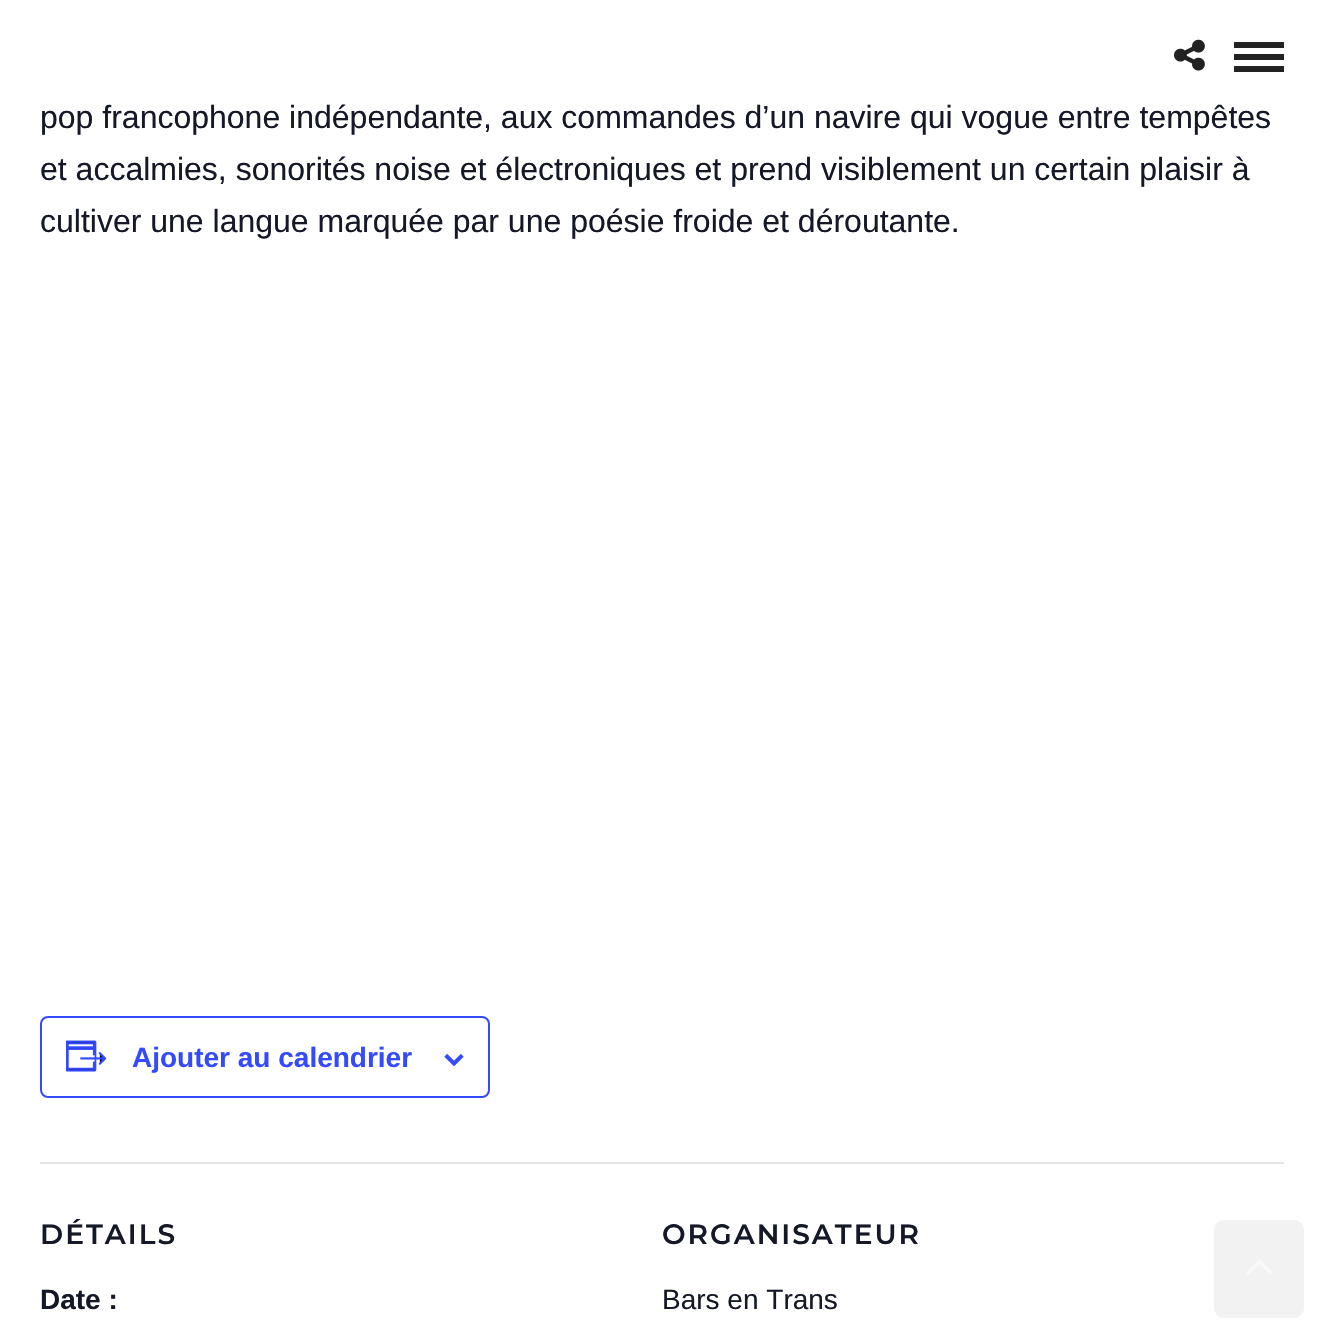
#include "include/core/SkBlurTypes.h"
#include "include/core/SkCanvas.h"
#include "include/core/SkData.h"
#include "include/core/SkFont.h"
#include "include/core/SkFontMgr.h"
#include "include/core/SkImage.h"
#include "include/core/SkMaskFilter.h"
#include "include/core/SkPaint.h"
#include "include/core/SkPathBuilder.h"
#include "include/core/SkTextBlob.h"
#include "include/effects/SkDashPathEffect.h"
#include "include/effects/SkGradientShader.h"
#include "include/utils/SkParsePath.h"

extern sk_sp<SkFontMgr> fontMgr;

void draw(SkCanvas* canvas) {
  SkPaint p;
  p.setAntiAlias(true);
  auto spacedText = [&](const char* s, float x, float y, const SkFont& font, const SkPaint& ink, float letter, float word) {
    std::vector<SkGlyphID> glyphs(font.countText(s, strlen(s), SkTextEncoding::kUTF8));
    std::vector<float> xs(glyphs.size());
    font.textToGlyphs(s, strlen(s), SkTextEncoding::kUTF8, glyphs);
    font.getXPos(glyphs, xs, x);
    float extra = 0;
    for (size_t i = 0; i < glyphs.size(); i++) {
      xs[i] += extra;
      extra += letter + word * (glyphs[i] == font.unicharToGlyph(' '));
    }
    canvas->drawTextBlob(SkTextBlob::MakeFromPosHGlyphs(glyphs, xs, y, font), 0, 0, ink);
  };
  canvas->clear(SK_ColorWHITE);
  canvas->drawImageRect(SkImages::DeferredFromEncodedData(SkData::MakeFromFileName("images/1.png")), SkRect::MakeLTRB(1174, 39, 1205, 71), SkSamplingOptions());
  p.setColor(SkColorSetRGB(34, 34, 34));
  canvas->drawRect(SkRect::MakeLTRB(1234, 42, 1284, 48), p);
  canvas->drawRect(SkRect::MakeLTRB(1234, 54, 1284, 60), p);
  canvas->drawRect(SkRect::MakeLTRB(1234, 66, 1284, 72), p);
  p.setStyle(SkPaint::kStroke_Style);
  p.setStrokeWidth(2);
  p.setColor(SkColorSetRGB(51, 74, 255));
  canvas->drawRoundRect(SkRect::MakeLTRB(41, 1017, 489, 1097), 7, 7, p);
  canvas->drawImageRect(SkImages::DeferredFromEncodedData(SkData::MakeFromFileName("images/2.png")), SkRect::MakeLTRB(66, 1040, 107, 1072), SkSamplingOptions());
  canvas->drawImageRect(SkImages::DeferredFromEncodedData(SkData::MakeFromFileName("images/3.png")), SkRect::MakeLTRB(444, 1054, 464, 1066), SkSamplingOptions());
  p.setStyle(SkPaint::kFill_Style);
  p.setColor(SkColorSetRGB(228, 228, 228));
  canvas->drawRect(SkRect::MakeLTRB(40, 1162, 1284, 1164), p);
  p.setColor(SkColorSetRGB(242, 242, 242));
  canvas->drawRoundRect(SkRect::MakeLTRB(1214, 1220, 1304, 1318), 10, 10, p);
  canvas->drawImageRect(SkImages::DeferredFromEncodedData(SkData::MakeFromFileName("images/4.png")), SkRect::MakeLTRB(1246, 1259, 1273, 1275), SkSamplingOptions());
  SkFont font1(fontMgr->matchFamilyStyle("Liberation Sans", SkFontStyle::Normal()), 32);
  font1.setSubpixel(true);
  p.setColor(SkColorSetRGB(20, 24, 39));
  canvas->drawString("pop francophone indépendante, aux commandes d’un navire qui vogue entre tempêtes", 40, 128, font1, p);
  canvas->drawString("et accalmies, sonorités noise et électroniques et prend visiblement un certain plaisir à", 40, 180, font1, p);
  canvas->drawString("cultiver une langue marquée par une poésie froide et déroutante.", 40, 232, font1, p);
  SkFont font2(fontMgr->matchFamilyStyle("Liberation Sans", SkFontStyle::Bold()), 28);
  font2.setSubpixel(true);
  p.setColor(SkColorSetRGB(51, 74, 255));
  canvas->drawString("Ajouter au calendrier", 132, 1067, font2, p);
  SkFont font3(fontMgr->matchFamilyStyle("Montserrat", SkFontStyle(600, SkFontStyle::kNormal_Width, SkFontStyle::kUpright_Slant)), 28);
  font3.setSubpixel(true);
  p.setColor(SkColorSetRGB(20, 24, 39));
  spacedText("DÉTAILS", 40, 1244, font3, p, 2, 0);
  canvas->drawString("Date :", 40, 1309, font2, p);
  spacedText("ORGANISATEUR", 662, 1244, font3, p, 2, 0);
  SkFont font4(fontMgr->matchFamilyStyle("Liberation Sans", SkFontStyle::Normal()), 28);
  font4.setSubpixel(true);
  canvas->drawString("Bars en Trans", 662, 1309, font4, p);
}
